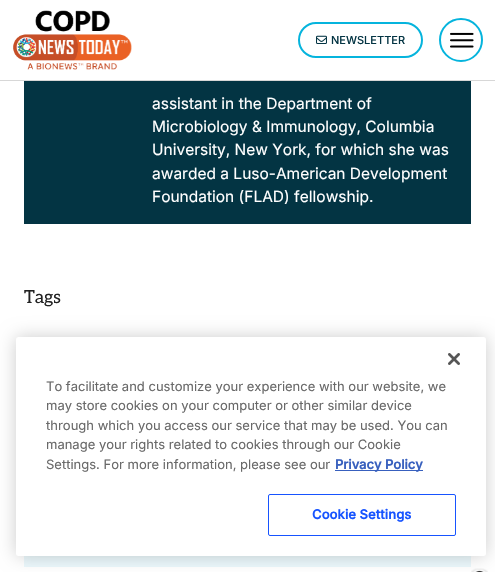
#include "include/core/SkBlurTypes.h"
#include "include/core/SkCanvas.h"
#include "include/core/SkData.h"
#include "include/core/SkFont.h"
#include "include/core/SkFontMgr.h"
#include "include/core/SkImage.h"
#include "include/core/SkMaskFilter.h"
#include "include/core/SkPaint.h"
#include "include/core/SkPathBuilder.h"
#include "include/core/SkTextBlob.h"
#include "include/effects/SkDashPathEffect.h"
#include "include/effects/SkGradientShader.h"
#include "include/utils/SkParsePath.h"

extern sk_sp<SkFontMgr> fontMgr;

void draw(SkCanvas* canvas) {
  SkPaint p;
  p.setAntiAlias(true);
  auto spacedText = [&](const char* s, float x, float y, const SkFont& font, const SkPaint& ink, float letter, float word) {
    std::vector<SkGlyphID> glyphs(font.countText(s, strlen(s), SkTextEncoding::kUTF8));
    std::vector<float> xs(glyphs.size());
    font.textToGlyphs(s, strlen(s), SkTextEncoding::kUTF8, glyphs);
    font.getXPos(glyphs, xs, x);
    float extra = 0;
    for (size_t i = 0; i < glyphs.size(); i++) {
      xs[i] += extra;
      extra += letter + word * (glyphs[i] == font.unicharToGlyph(' '));
    }
    canvas->drawTextBlob(SkTextBlob::MakeFromPosHGlyphs(glyphs, xs, y, font), 0, 0, ink);
  };
  canvas->clear(SK_ColorWHITE);
  p.setColor(SkColorSetRGB(215, 215, 215));
  canvas->drawRect(SkRect::MakeLTRB(0, 80, 495, 81), p);
  canvas->drawImageRect(SkImages::DeferredFromEncodedData(SkData::MakeFromFileName("images/1.png")), SkRect::MakeLTRB(13, 10, 132, 70), SkSamplingOptions());
  p.setStyle(SkPaint::kStroke_Style);
  p.setStrokeWidth(2);
  p.setColor(SkColorSetRGB(5, 180, 221));
  canvas->drawRoundRect(SkRect::MakeLTRB(299, 23, 422, 57), 17, 17, p);
  canvas->drawImageRect(SkImages::DeferredFromEncodedData(SkData::MakeFromFileName("images/2.png")), SkRect::MakeLTRB(316, 35, 327, 44), SkSamplingOptions());
  canvas->drawImageRect(SkImages::DeferredFromEncodedData(SkData::MakeFromFileName("images/3.png")), SkRect::MakeLTRB(450, 32, 474, 48), SkSamplingOptions());
  canvas->drawCircle(461, 40, 21, p);
  p.setStyle(SkPaint::kFill_Style);
  p.setColor(SkColorSetRGB(3, 52, 67));
  canvas->drawRect(SkRect::MakeLTRB(24, 81, 471, 224), p);
  p.setColor(SkColorSetRGB(235, 248, 252));
  canvas->drawRect(SkRect::MakeLTRB(24, 556, 471, 567), p);
  canvas->drawImageRect(SkImages::DeferredFromEncodedData(SkData::MakeFromFileName("images/5.png")), SkRect::MakeLTRB(471, 568, 488, 572), SkSamplingOptions());
  p.setColor(SkColorSetARGB(51, 0, 0, 0));
  p.setMaskFilter(SkMaskFilter::MakeBlur(kNormal_SkBlurStyle, 9));
  canvas->drawRoundRect(SkRect::MakeLTRB(16, 337, 486, 556), 2.5f, 2.5f, p);
  p.setMaskFilter(nullptr);
  p.setColor(SK_ColorWHITE);
  canvas->drawRoundRect(SkRect::MakeLTRB(16, 337, 486, 556), 2.5f, 2.5f, p);
  canvas->drawImageRect(SkImages::DeferredFromEncodedData(SkData::MakeFromFileName("images/4.png")), SkRect::MakeLTRB(448, 353, 460, 365), SkSamplingOptions());
  p.setColor(SkColorSetRGB(56, 96, 190));
  canvas->drawRect(SkRect::MakeLTRB(335, 470, 423, 471), p);
  p.setStyle(SkPaint::kStroke_Style);
  p.setStrokeWidth(1);
  p.setColor(SkColorSetRGB(23, 84, 255));
  canvas->drawRoundRect(SkRect::MakeLTRB(268.5f, 494.5f, 455.5f, 535.5f), 1.5f, 1.5f, p);
  SkFont font1(fontMgr->matchFamilyStyle("Inter", SkFontStyle(500, SkFontStyle::kNormal_Width, SkFontStyle::kUpright_Slant)), 11);
  font1.setSubpixel(true);
  p.setStyle(SkPaint::kFill_Style);
  p.setColor(SkColorSetRGB(3, 52, 67));
  canvas->drawString("NEWSLETTER", 331, 44, font1, p);
  SkFont font2(fontMgr->matchFamilyStyle("Inter", SkFontStyle::Normal()), 15.5f);
  font2.setSubpixel(true);
  p.setColor(SK_ColorWHITE);
  canvas->drawString("assistant in the Department of", 152, 109, font2, p);
  canvas->drawString("Microbiology & Immunology, Columbia", 152, 132, font2, p);
  canvas->drawString("University, New York, for which she was", 152, 155, font2, p);
  canvas->drawString("awarded a Luso-American Development", 152, 179, font2, p);
  canvas->drawString("Foundation (FLAD) fellowship.", 152, 202, font2, p);
  SkFont font3(fontMgr->matchFamilyStyle("Aleo", SkFontStyle::Normal()), 18);
  font3.setSubpixel(true);
  p.setColor(SkColorSetRGB(33, 33, 33));
  canvas->drawString("Tags", 24, 303, font3, p);
  SkFont font4(fontMgr->matchFamilyStyle("Inter", SkFontStyle::Normal()), 13);
  font4.setSubpixel(true);
  p.setColor(SkColorSetRGB(105, 105, 105));
  canvas->drawString("To facilitate and customize your experience with our website, we", 46, 391, font4, p);
  canvas->drawString("may store cookies on your computer or other similar device", 46, 410, font4, p);
  canvas->drawString("through which you access our service that may be used. You can", 46, 430, font4, p);
  canvas->drawString("manage your rights related to cookies through our Cookie", 46, 449, font4, p);
  canvas->drawString("Settings. For more information, please see our", 46, 469, font4, p);
  SkFont font5(fontMgr->matchFamilyStyle("Inter", SkFontStyle::Bold()), 13);
  font5.setSubpixel(true);
  p.setColor(SkColorSetRGB(56, 96, 190));
  canvas->drawString("Privacy Policy", 335, 469, font5, p);
  p.setColor(SkColorSetRGB(23, 84, 255));
  spacedText("Cookie Settings", 312, 519, font5, p, 0.1f, 0);
}
